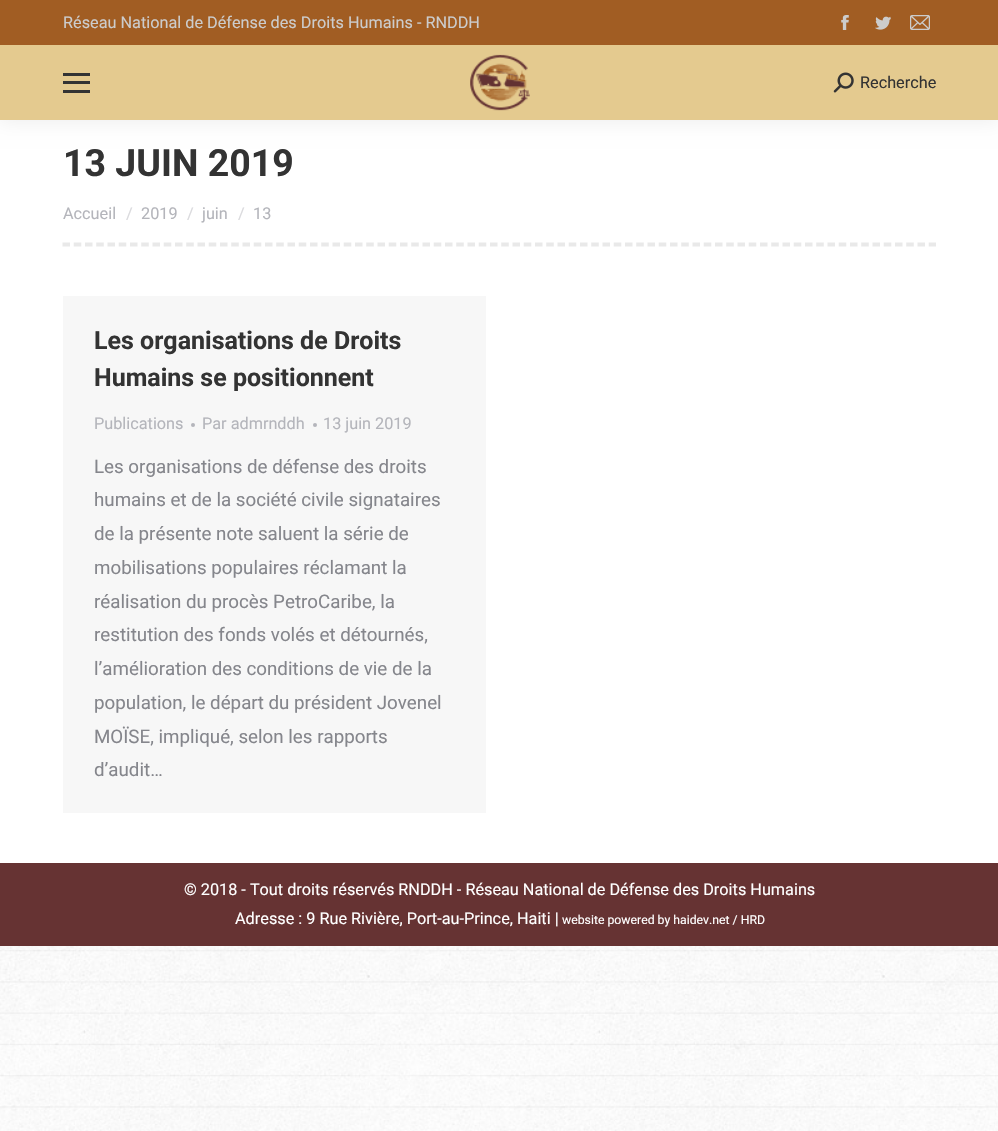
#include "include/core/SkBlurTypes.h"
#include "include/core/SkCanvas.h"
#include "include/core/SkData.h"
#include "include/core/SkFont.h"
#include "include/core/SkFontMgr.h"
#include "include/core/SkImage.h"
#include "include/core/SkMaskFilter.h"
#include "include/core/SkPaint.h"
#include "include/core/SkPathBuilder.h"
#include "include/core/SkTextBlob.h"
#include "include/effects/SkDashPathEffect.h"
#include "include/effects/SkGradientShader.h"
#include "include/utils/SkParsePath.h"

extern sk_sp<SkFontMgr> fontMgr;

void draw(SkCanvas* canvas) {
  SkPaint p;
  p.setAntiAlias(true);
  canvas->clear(SK_ColorWHITE);
  canvas->drawImageRect(SkImages::DeferredFromEncodedData(SkData::MakeFromFileName("images/1.png")), SkRect::MakeLTRB(0, 946, 998, 1131), SkSamplingOptions());
  p.setColor(SkColorSetARGB(18, 0, 0, 0));
  p.setMaskFilter(SkMaskFilter::MakeBlur(kNormal_SkBlurStyle, 9.5f));
  canvas->drawRect(SkRect::MakeLTRB(-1, -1, 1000, 121), p);
  p.setMaskFilter(nullptr);
  p.setColor(SkColorSetRGB(228, 202, 143));
  canvas->drawRect(SkRect::MakeLTRB(0, 45, 998, 120), p);
  p.setColor(SkColorSetRGB(161, 93, 35));
  canvas->drawRect(SkRect::MakeLTRB(0, 0, 998, 45), p);
  canvas->drawImageRect(SkImages::DeferredFromEncodedData(SkData::MakeFromFileName("images/2.png")), SkRect::MakeLTRB(841, 15, 849, 30), SkSamplingOptions());
  canvas->drawImageRect(SkImages::DeferredFromEncodedData(SkData::MakeFromFileName("images/3.png")), SkRect::MakeLTRB(875, 16, 891, 30), SkSamplingOptions());
  canvas->drawImageRect(SkImages::DeferredFromEncodedData(SkData::MakeFromFileName("images/4.png")), SkRect::MakeLTRB(910, 15, 930, 30), SkSamplingOptions());
  p.setColor(SkColorSetRGB(51, 51, 51));
  canvas->drawRect(SkRect::MakeLTRB(63, 81, 90, 84), p);
  canvas->drawRect(SkRect::MakeLTRB(63, 73, 90, 76), p);
  canvas->drawRect(SkRect::MakeLTRB(63, 90, 90, 93), p);
  canvas->drawImageRect(SkImages::DeferredFromEncodedData(SkData::MakeFromFileName("images/5.png")), SkRect::MakeLTRB(470, 54, 530, 111), SkSamplingOptions());
  canvas->drawImageRect(SkImages::DeferredFromEncodedData(SkData::MakeFromFileName("images/6.png")), SkRect::MakeLTRB(833, 72, 854, 93), SkSamplingOptions());
  p.setStyle(SkPaint::kStroke_Style);
  p.setStrokeWidth(3.8f);
  p.setColor(SkColorSetRGB(233, 233, 233));
  p.setPathEffect(SkDashPathEffect::Make({{7.5f, 3.75f}}, 0));
  canvas->drawPath(SkPathBuilder().moveTo(62.5f, 244.5f).lineTo(936, 244.5f).detach(), p);
  p.setPathEffect(nullptr);
  p.setStyle(SkPaint::kFill_Style);
  p.setColor(SkColorSetRGB(247, 247, 247));
  canvas->drawRect(SkRect::MakeLTRB(63, 296, 486, 813), p);
  p.setColor(SkColorSetRGB(180, 181, 187));
  canvas->drawCircle(193, 425, 2, p);
  canvas->drawCircle(315, 425, 2, p);
  p.setColor(SkColorSetRGB(102, 51, 51));
  canvas->drawRect(SkRect::MakeLTRB(0, 863, 998, 946), p);
  SkFont font1(fontMgr->matchFamilyStyle("Roboto", SkFontStyle::Normal()), 16.25f);
  font1.setSubpixel(true);
  p.setColor(SkColorSetRGB(204, 204, 204));
  canvas->drawString("Réseau National de Défense des Droits Humains - RNDDH", 63, 28, font1, p);
  p.setColor(SkColorSetRGB(51, 51, 51));
  canvas->drawString("Recherche", 860, 88, font1, p);
  SkFont font2(fontMgr->matchFamilyStyle("Roboto", SkFontStyle::Bold()), 37.5f);
  font2.setSubpixel(true);
  canvas->drawString("13 JUIN 2019", 63, 176, font2, p);
  p.setColor(SkColorSetRGB(180, 181, 187));
  canvas->drawString("Accueil", 63, 219, font1, p);
  p.setColor(SkColorSetRGB(218, 218, 221));
  canvas->drawString("/", 126, 219, font1, p);
  p.setColor(SkColorSetRGB(180, 181, 187));
  canvas->drawString("2019", 141, 219, font1, p);
  p.setColor(SkColorSetRGB(218, 218, 221));
  canvas->drawString("/", 187, 219, font1, p);
  p.setColor(SkColorSetRGB(180, 181, 187));
  canvas->drawString("juin", 202, 219, font1, p);
  p.setColor(SkColorSetRGB(218, 218, 221));
  canvas->drawString("/", 238, 219, font1, p);
  p.setColor(SkColorSetRGB(180, 181, 187));
  canvas->drawString("13", 253, 219, font1, p);
  SkFont font3(fontMgr->matchFamilyStyle("Roboto", SkFontStyle::Bold()), 25);
  font3.setSubpixel(true);
  p.setColor(SkColorSetRGB(51, 51, 51));
  canvas->drawString("Les organisations de Droits", 94, 349, font3, p);
  canvas->drawString("Humains se positionnent", 94, 386, font3, p);
  p.setColor(SkColorSetRGB(180, 181, 187));
  canvas->drawString("Publications", 94, 429, font1, p);
  canvas->drawString("Par admrnddh", 202, 429, font1, p);
  canvas->drawString("13 juin 2019", 323, 429, font1, p);
  SkFont font4(fontMgr->matchFamilyStyle("Roboto", SkFontStyle::Normal()), 18.75f);
  font4.setSubpixel(true);
  p.setColor(SkColorSetRGB(133, 134, 140));
  canvas->drawString("Les organisations de défense des droits", 94, 473, font4, p);
  canvas->drawString("humains et de la société civile signataires", 94, 506, font4, p);
  canvas->drawString("de la présente note saluent la série de", 94, 540, font4, p);
  canvas->drawString("mobilisations populaires réclamant la", 94, 574, font4, p);
  canvas->drawString("réalisation du procès PetroCaribe, la", 94, 608, font4, p);
  canvas->drawString("restitution des fonds volés et détournés,", 94, 641, font4, p);
  canvas->drawString("l’amélioration des conditions de vie de la", 94, 675, font4, p);
  canvas->drawString("population, le départ du président Jovenel", 94, 709, font4, p);
  canvas->drawString("MOÏSE, impliqué, selon les rapports", 94, 743, font4, p);
  canvas->drawString("d’audit…", 94, 776, font4, p);
  p.setColor(SK_ColorWHITE);
  canvas->drawString("© 2018 - Tout droits réservés RNDDH - Réseau National de Défense des Droits Humains", 184, 895, font1, p);
  canvas->drawString("Adresse : 9 Rue Rivière, Port-au-Prince, Haiti |", 235, 924, font1, p);
  SkFont font5(fontMgr->matchFamilyStyle("Roboto", SkFontStyle::Normal()), 12.25f);
  font5.setSubpixel(true);
  canvas->drawString("website powered by haidev.net / HRD", 562, 924, font5, p);
}
